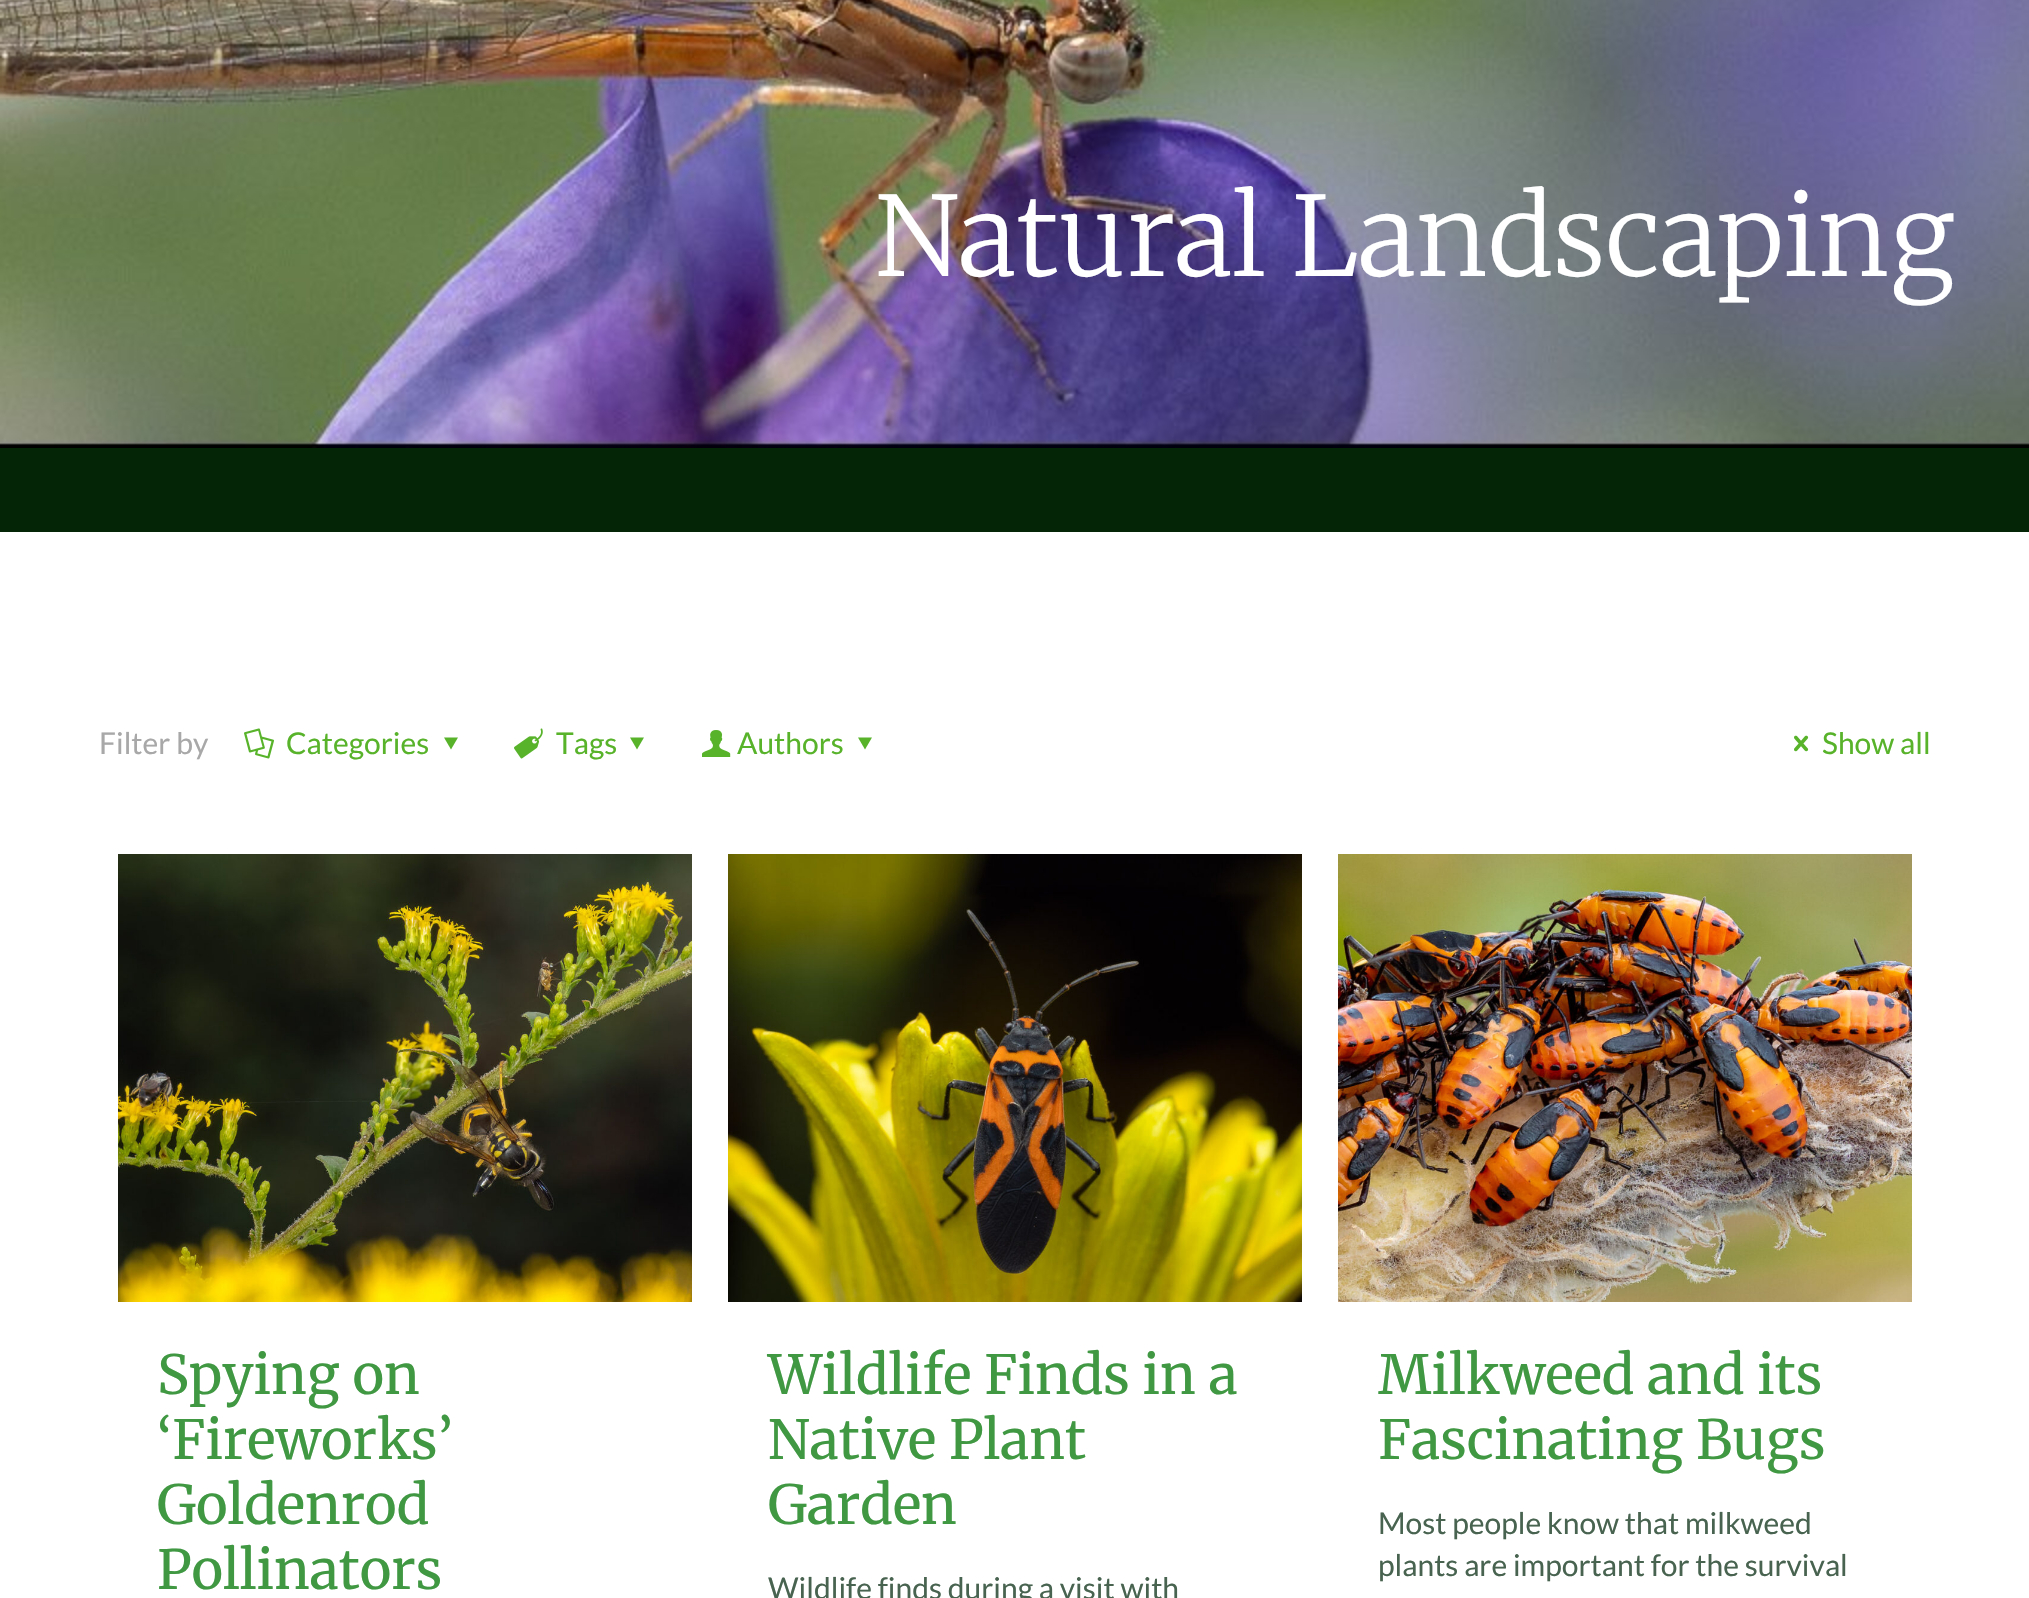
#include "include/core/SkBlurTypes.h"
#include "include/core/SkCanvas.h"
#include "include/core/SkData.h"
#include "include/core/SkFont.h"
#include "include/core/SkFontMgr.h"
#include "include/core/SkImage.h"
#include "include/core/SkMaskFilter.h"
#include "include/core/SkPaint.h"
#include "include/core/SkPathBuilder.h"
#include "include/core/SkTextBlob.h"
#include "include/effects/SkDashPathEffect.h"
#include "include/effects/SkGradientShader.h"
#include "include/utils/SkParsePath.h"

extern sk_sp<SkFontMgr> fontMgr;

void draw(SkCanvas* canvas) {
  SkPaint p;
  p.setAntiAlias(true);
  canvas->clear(SK_ColorWHITE);
  p.setColor(SkColorSetRGB(5, 38, 6));
  canvas->drawRect(SkRect::MakeLTRB(0, 448, 2029, 532), p);
  canvas->drawImageRect(SkImages::DeferredFromEncodedData(SkData::MakeFromFileName("images/1.png")), SkRect::MakeLTRB(0, 0, 2029, 448), SkSamplingOptions());
  canvas->drawImageRect(SkImages::DeferredFromEncodedData(SkData::MakeFromFileName("images/2.png")), SkRect::MakeLTRB(244, 728, 274, 759), SkSamplingOptions());
  p.setColor(SkColorSetRGB(88, 179, 43));
  canvas->drawPath(SkPathBuilder().moveTo(458, 737.5f).lineTo(451, 749.5f).lineTo(444, 737.5f).close().detach(), p);
  canvas->drawImageRect(SkImages::DeferredFromEncodedData(SkData::MakeFromFileName("images/3.png")), SkRect::MakeLTRB(514, 728, 543, 759), SkSamplingOptions());
  canvas->drawPath(SkPathBuilder().moveTo(644, 737.5f).lineTo(637, 749.5f).lineTo(630, 737.5f).close().detach(), p);
  canvas->drawImageRect(SkImages::DeferredFromEncodedData(SkData::MakeFromFileName("images/4.png")), SkRect::MakeLTRB(702, 730, 731, 757), SkSamplingOptions());
  canvas->drawPath(SkPathBuilder().moveTo(872, 737.5f).lineTo(865, 749.5f).lineTo(858, 737.5f).close().detach(), p);
  canvas->drawImageRect(SkImages::DeferredFromEncodedData(SkData::MakeFromFileName("images/5.png")), SkRect::MakeLTRB(1794, 735, 1809, 752), SkSamplingOptions());
  canvas->drawImageRect(SkImages::DeferredFromEncodedData(SkData::MakeFromFileName("images/6.png")), SkRect::MakeLTRB(118, 854, 692, 1302), SkSamplingOptions());
  canvas->drawImageRect(SkImages::DeferredFromEncodedData(SkData::MakeFromFileName("images/7.png")), SkRect::MakeLTRB(728, 854, 1302, 1302), SkSamplingOptions());
  canvas->drawImageRect(SkImages::DeferredFromEncodedData(SkData::MakeFromFileName("images/8.png")), SkRect::MakeLTRB(1338, 854, 1912, 1302), SkSamplingOptions());
  SkFont font1(fontMgr->matchFamilyStyle("Merriweather", SkFontStyle(300, SkFontStyle::kNormal_Width, SkFontStyle::kUpright_Slant)), 110);
  font1.setSubpixel(true);
  p.setColor(SK_ColorWHITE);
  canvas->drawString("Natural Landscaping", 875, 276, font1, p);
  SkFont font2(fontMgr->matchFamilyStyle("Lato", SkFontStyle::Normal()), 30);
  font2.setSubpixel(true);
  p.setColor(SkColorSetRGB(168, 168, 168));
  canvas->drawString("Filter by", 99, 754, font2, p);
  p.setColor(SkColorSetRGB(88, 179, 43));
  canvas->drawString("Categories", 286, 754, font2, p);
  canvas->drawString("Tags", 556, 754, font2, p);
  canvas->drawString("Authors", 737, 754, font2, p);
  canvas->drawString("Show all", 1822, 754, font2, p);
  SkFont font3(fontMgr->matchFamilyStyle("Merriweather", SkFontStyle::Normal()), 54);
  font3.setSubpixel(true);
  p.setColor(SkColorSetRGB(64, 152, 67));
  canvas->drawString("Spying on", 157, 1394, font3, p);
  canvas->drawString("‘Fireworks’", 157, 1459, font3, p);
  canvas->drawString("Goldenrod", 157, 1524, font3, p);
  canvas->drawString("Pollinators", 157, 1589, font3, p);
  canvas->drawString("Wildlife Finds in a", 768, 1394, font3, p);
  canvas->drawString("Native Plant", 768, 1459, font3, p);
  canvas->drawString("Garden", 768, 1524, font3, p);
  p.setColor(SkColorSetRGB(72, 99, 80));
  canvas->drawString("Wildlife finds during a visit with", 768, 1599, font2, p);
  p.setColor(SkColorSetRGB(64, 152, 67));
  canvas->drawString("Milkweed and its", 1378, 1394, font3, p);
  canvas->drawString("Fascinating Bugs", 1378, 1459, font3, p);
  p.setColor(SkColorSetRGB(72, 99, 80));
  canvas->drawString("Most people know that milkweed", 1378, 1534, font2, p);
  canvas->drawString("plants are important for the survival", 1378, 1576, font2, p);
}
